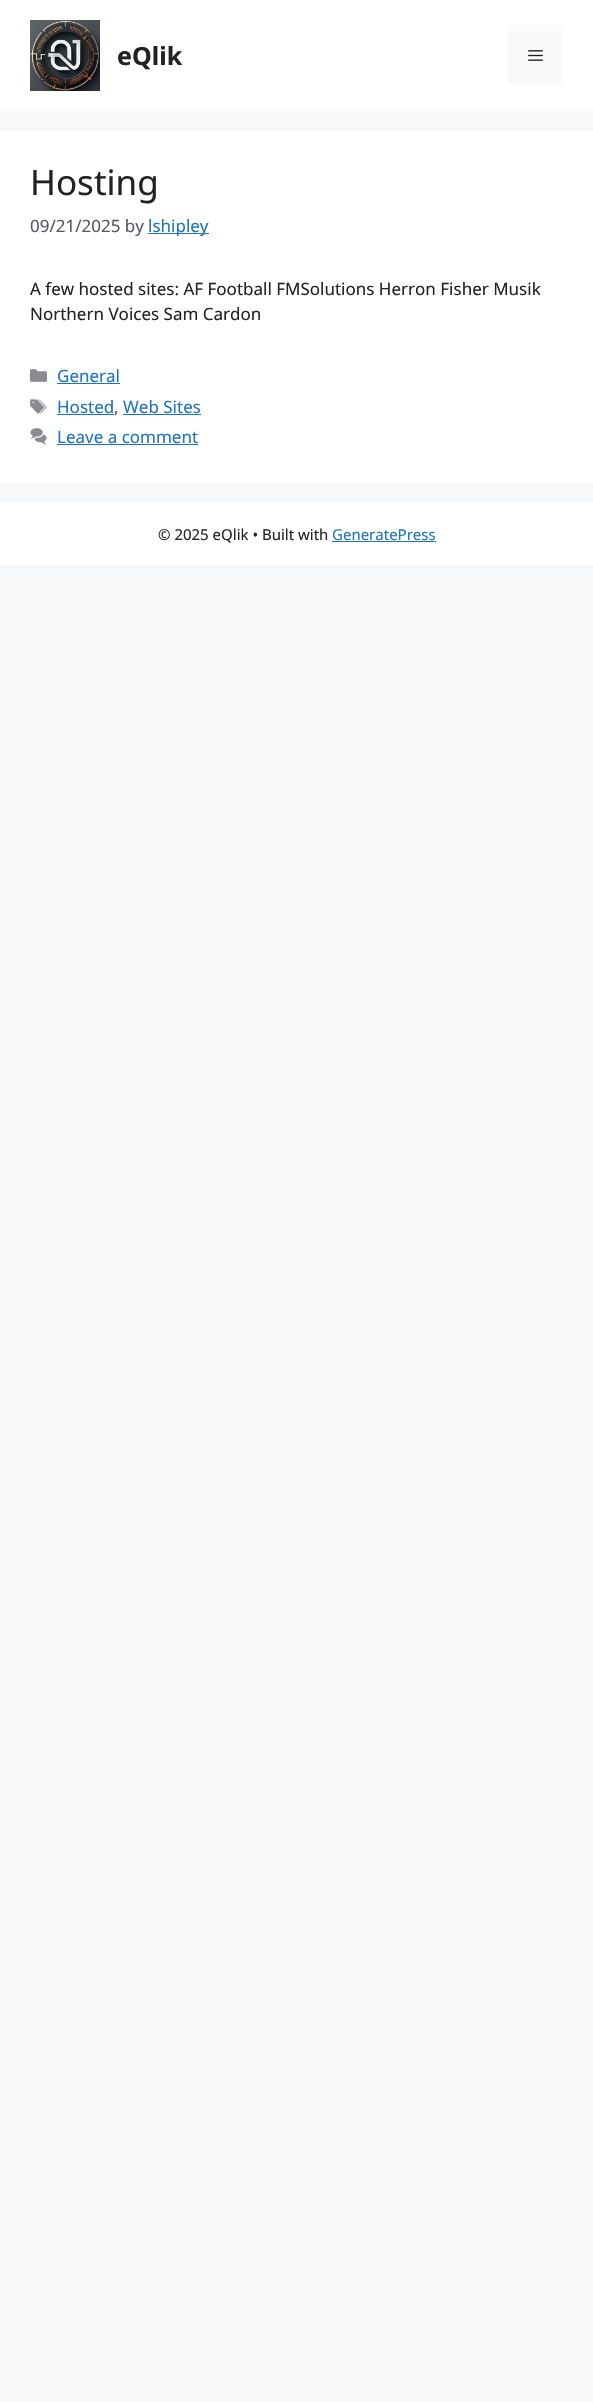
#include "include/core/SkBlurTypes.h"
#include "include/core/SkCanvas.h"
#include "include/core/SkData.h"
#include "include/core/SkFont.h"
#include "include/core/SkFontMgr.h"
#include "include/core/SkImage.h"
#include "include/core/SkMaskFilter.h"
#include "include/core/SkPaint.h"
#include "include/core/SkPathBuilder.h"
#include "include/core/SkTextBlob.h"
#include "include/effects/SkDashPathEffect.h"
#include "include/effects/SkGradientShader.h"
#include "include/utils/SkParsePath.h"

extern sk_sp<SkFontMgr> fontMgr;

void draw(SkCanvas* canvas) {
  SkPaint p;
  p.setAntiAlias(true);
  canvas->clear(SkColorSetRGB(247, 248, 249));
  p.setColor(SK_ColorWHITE);
  canvas->drawRect(SkRect::MakeLTRB(0, 0, 593, 111), p);
  canvas->drawImageRect(SkImages::DeferredFromEncodedData(SkData::MakeFromFileName("images/1.png")), SkRect::MakeLTRB(30, 20, 100, 91), SkSamplingOptions());
  p.setColor(SkColorSetRGB(250, 250, 250));
  canvas->drawRect(SkRect::MakeLTRB(508, 25, 563, 85), p);
  canvas->drawImageRect(SkImages::DeferredFromEncodedData(SkData::MakeFromFileName("images/2.png")), SkRect::MakeLTRB(528, 50, 543, 61), SkSamplingOptions());
  p.setColor(SK_ColorWHITE);
  canvas->drawRect(SkRect::MakeLTRB(0, 131, 593, 483), p);
  p.setColor(SkColorSetRGB(30, 115, 190));
  canvas->drawRect(SkRect::MakeLTRB(148, 233, 209, 234), p);
  canvas->drawImageRect(SkImages::DeferredFromEncodedData(SkData::MakeFromFileName("images/3.png")), SkRect::MakeLTRB(30, 369, 47, 382), SkSamplingOptions());
  canvas->drawRect(SkRect::MakeLTRB(57, 383, 120, 384), p);
  canvas->drawImageRect(SkImages::DeferredFromEncodedData(SkData::MakeFromFileName("images/4.png")), SkRect::MakeLTRB(30, 399, 47, 414), SkSamplingOptions());
  canvas->drawRect(SkRect::MakeLTRB(57, 414, 114, 415), p);
  canvas->drawRect(SkRect::MakeLTRB(123, 414, 201, 415), p);
  canvas->drawImageRect(SkImages::DeferredFromEncodedData(SkData::MakeFromFileName("images/5.png")), SkRect::MakeLTRB(30, 428, 47, 445), SkSamplingOptions());
  canvas->drawRect(SkRect::MakeLTRB(57, 444, 198, 445), p);
  p.setColor(SK_ColorWHITE);
  canvas->drawRect(SkRect::MakeLTRB(0, 503, 593, 565), p);
  p.setColor(SkColorSetRGB(30, 115, 190));
  canvas->drawRect(SkRect::MakeLTRB(332, 541, 436, 542), p);
  SkFont font1(fontMgr->matchFamilyStyle("Noto Sans", SkFontStyle::Bold()), 25);
  font1.setSubpixel(true);
  p.setColor(SkColorSetRGB(34, 34, 34));
  canvas->drawString("eQlik", 117, 65, font1, p);
  SkFont font2(fontMgr->matchFamilyStyle("Noto Sans", SkFontStyle::Normal()), 35);
  font2.setSubpixel(true);
  canvas->drawString("Hosting", 30, 195, font2, p);
  SkFont font3(fontMgr->matchFamilyStyle("Noto Sans", SkFontStyle::Normal()), 17);
  font3.setSubpixel(true);
  p.setColor(SkColorSetRGB(87, 87, 96));
  canvas->drawString("09/21/2025 by", 30, 232, font3, p);
  p.setColor(SkColorSetRGB(30, 115, 190));
  canvas->drawString("lshipley", 148, 232, font3, p);
  p.setColor(SkColorSetRGB(34, 34, 34));
  canvas->drawString("A few hosted sites: AF Football FMSolutions Herron Fisher Musik", 30, 295, font3, p);
  canvas->drawString("Northern Voices Sam Cardon", 30, 320, font3, p);
  p.setColor(SkColorSetRGB(30, 115, 190));
  canvas->drawString("General", 57, 382, font3, p);
  canvas->drawString("Hosted", 57, 413, font3, p);
  p.setColor(SkColorSetRGB(87, 87, 96));
  canvas->drawString(",", 114, 413, font3, p);
  p.setColor(SkColorSetRGB(30, 115, 190));
  canvas->drawString("Web Sites", 123, 413, font3, p);
  canvas->drawString("Leave a comment", 57, 443, font3, p);
  SkFont font4(fontMgr->matchFamilyStyle("Noto Sans", SkFontStyle::Normal()), 15);
  font4.setSubpixel(true);
  p.setColor(SkColorSetRGB(34, 34, 34));
  canvas->drawString("© 2025 eQlik • Built with", 158, 540, font4, p);
  p.setColor(SkColorSetRGB(30, 115, 190));
  canvas->drawString("GeneratePress", 332, 540, font4, p);
}
